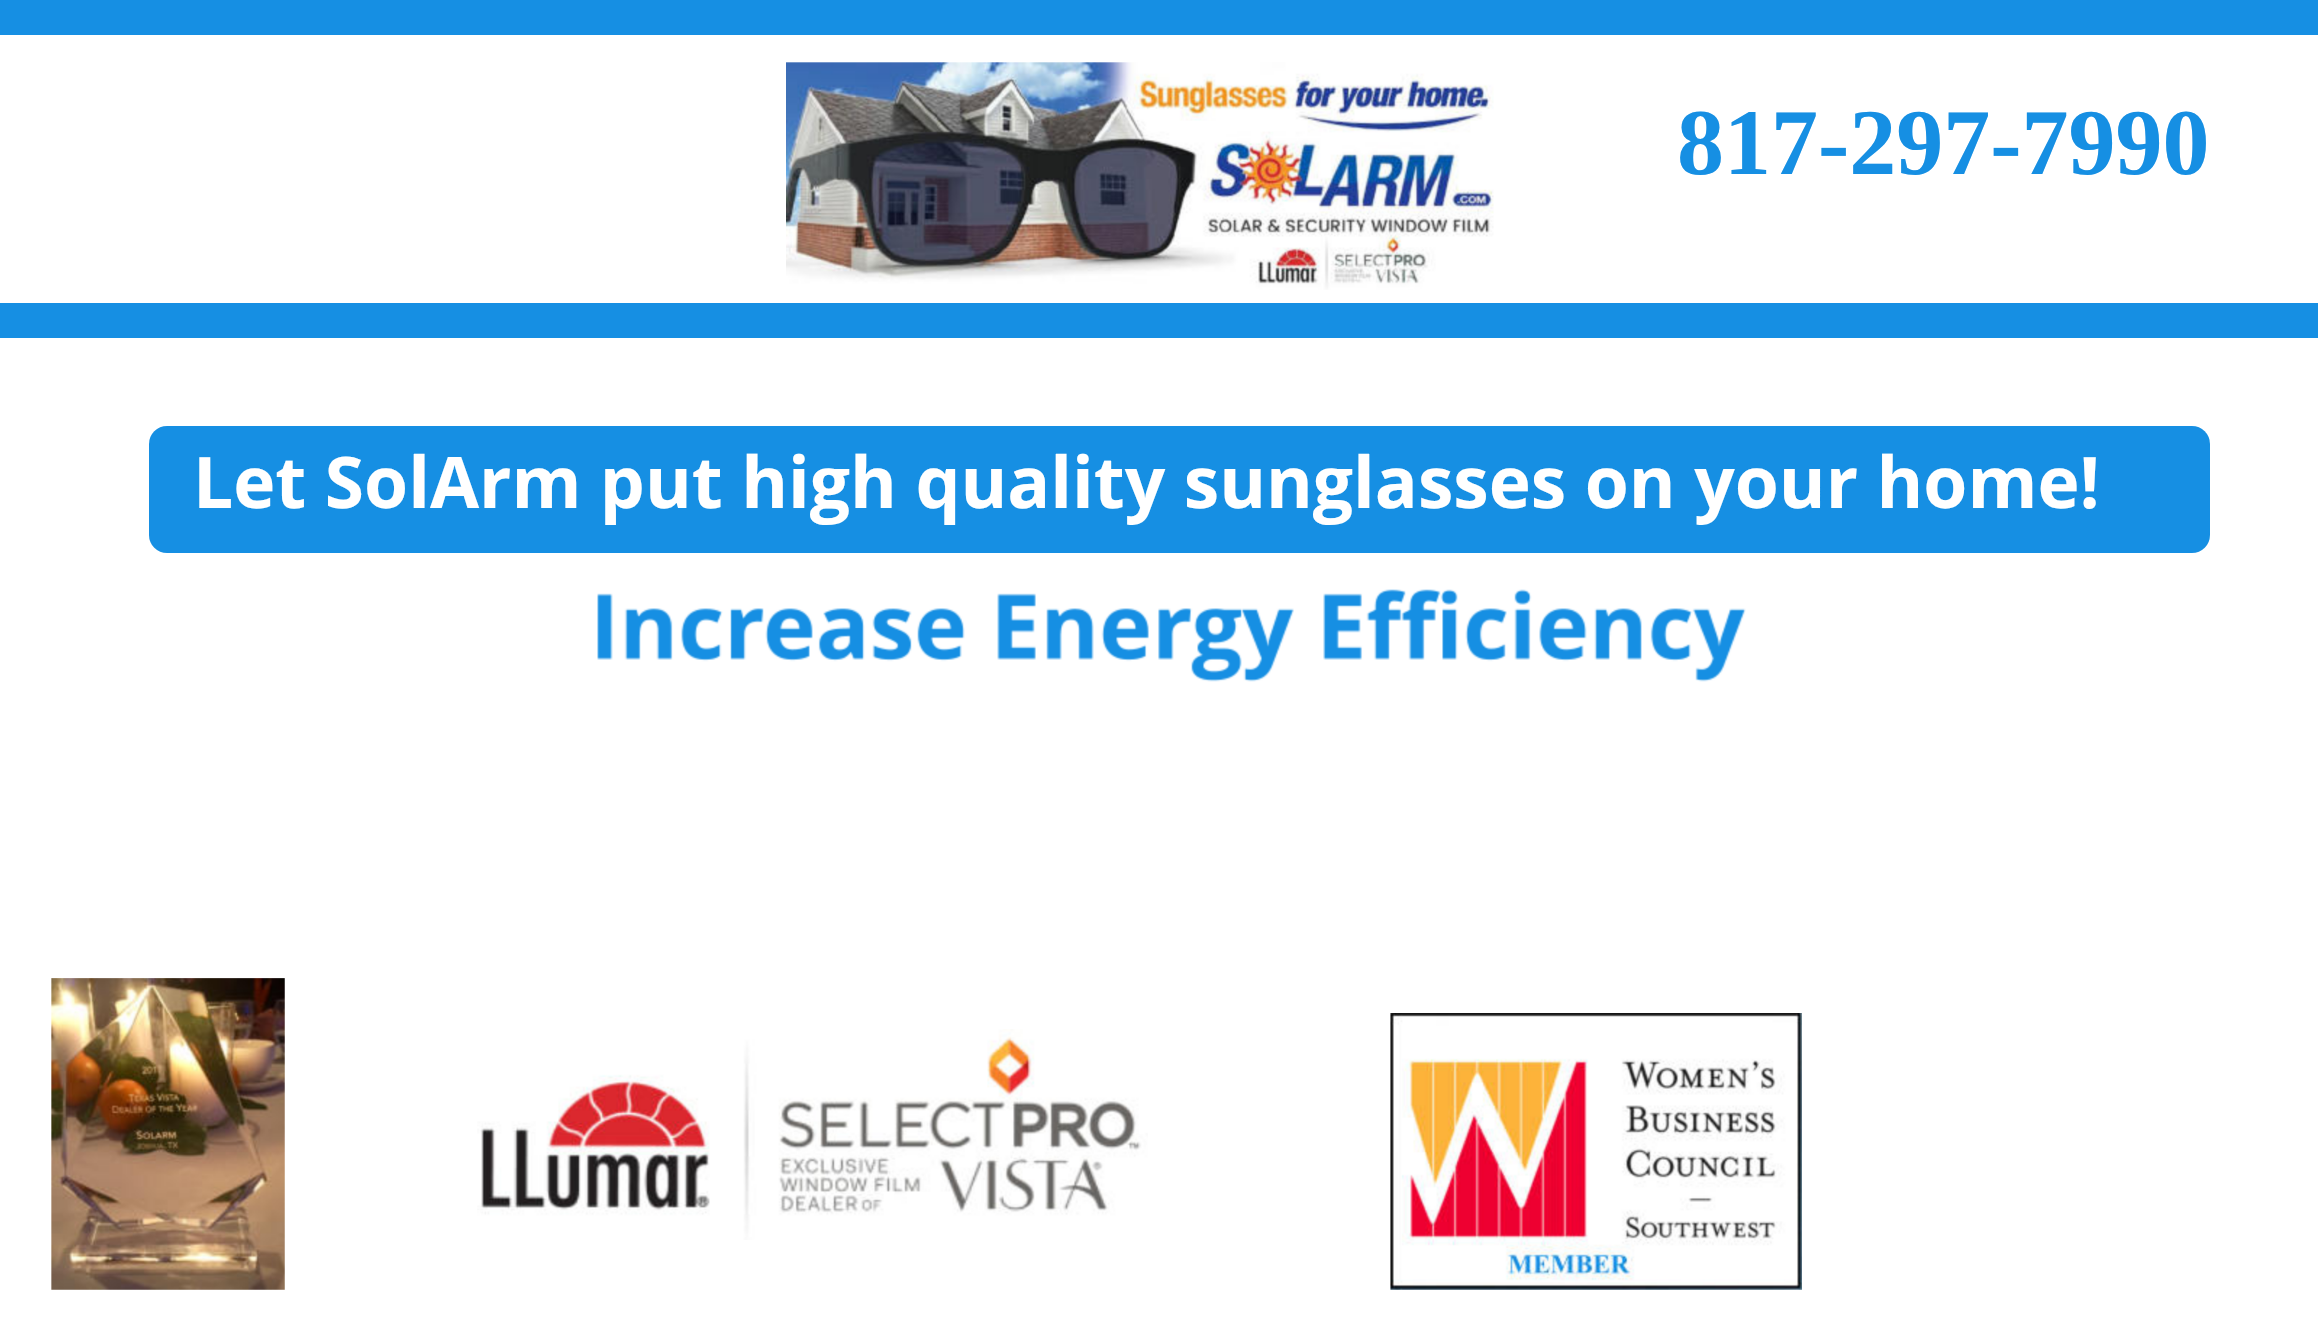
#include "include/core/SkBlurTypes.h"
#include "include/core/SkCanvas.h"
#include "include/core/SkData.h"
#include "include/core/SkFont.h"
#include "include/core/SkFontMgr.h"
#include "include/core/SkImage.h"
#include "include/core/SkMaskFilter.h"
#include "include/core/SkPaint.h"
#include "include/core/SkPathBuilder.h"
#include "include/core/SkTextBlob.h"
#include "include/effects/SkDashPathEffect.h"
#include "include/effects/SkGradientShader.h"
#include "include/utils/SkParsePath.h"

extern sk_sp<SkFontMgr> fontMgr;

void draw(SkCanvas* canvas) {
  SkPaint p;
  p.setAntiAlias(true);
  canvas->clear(SK_ColorWHITE);
  p.setColor(SkColorSetRGB(22, 143, 227));
  canvas->drawRect(SkRect::MakeLTRB(0, 0, 2318, 35), p);
  canvas->drawImageRect(SkImages::DeferredFromEncodedData(SkData::MakeFromFileName("images/1.png")), SkRect::MakeLTRB(786, 62, 1494, 290), SkSamplingOptions());
  canvas->drawRect(SkRect::MakeLTRB(0, 303, 2318, 338), p);
  canvas->drawRoundRect(SkRect::MakeLTRB(149, 426, 2210, 553), 18, 18, p);
  canvas->drawImageRect(SkImages::DeferredFromEncodedData(SkData::MakeFromFileName("images/2.png")), SkRect::MakeLTRB(597, 589, 1746, 682), SkSamplingOptions());
  canvas->drawImageRect(SkImages::DeferredFromEncodedData(SkData::MakeFromFileName("images/3.png")), SkRect::MakeLTRB(51, 978, 285, 1290), SkSamplingOptions());
  canvas->drawImageRect(SkImages::DeferredFromEncodedData(SkData::MakeFromFileName("images/4.png")), SkRect::MakeLTRB(477, 1029, 1148, 1240), SkSamplingOptions());
  canvas->drawImageRect(SkImages::DeferredFromEncodedData(SkData::MakeFromFileName("images/5.png")), SkRect::MakeLTRB(1390, 1013, 1802, 1290), SkSamplingOptions());
  SkFont font1(fontMgr->matchFamilyStyle("Liberation Serif", SkFontStyle::Bold()), 94);
  font1.setSubpixel(true);
  canvas->drawString("817-297-7990", 1677, 174, font1, p);
  SkFont font2(fontMgr->matchFamilyStyle("Open Sans", SkFontStyle::Bold()), 71.25f);
  font2.setSubpixel(true);
  p.setColor(SK_ColorWHITE);
  canvas->drawString("Let SolArm put high quality sunglasses on your home!", 193, 508, font2, p);
}
